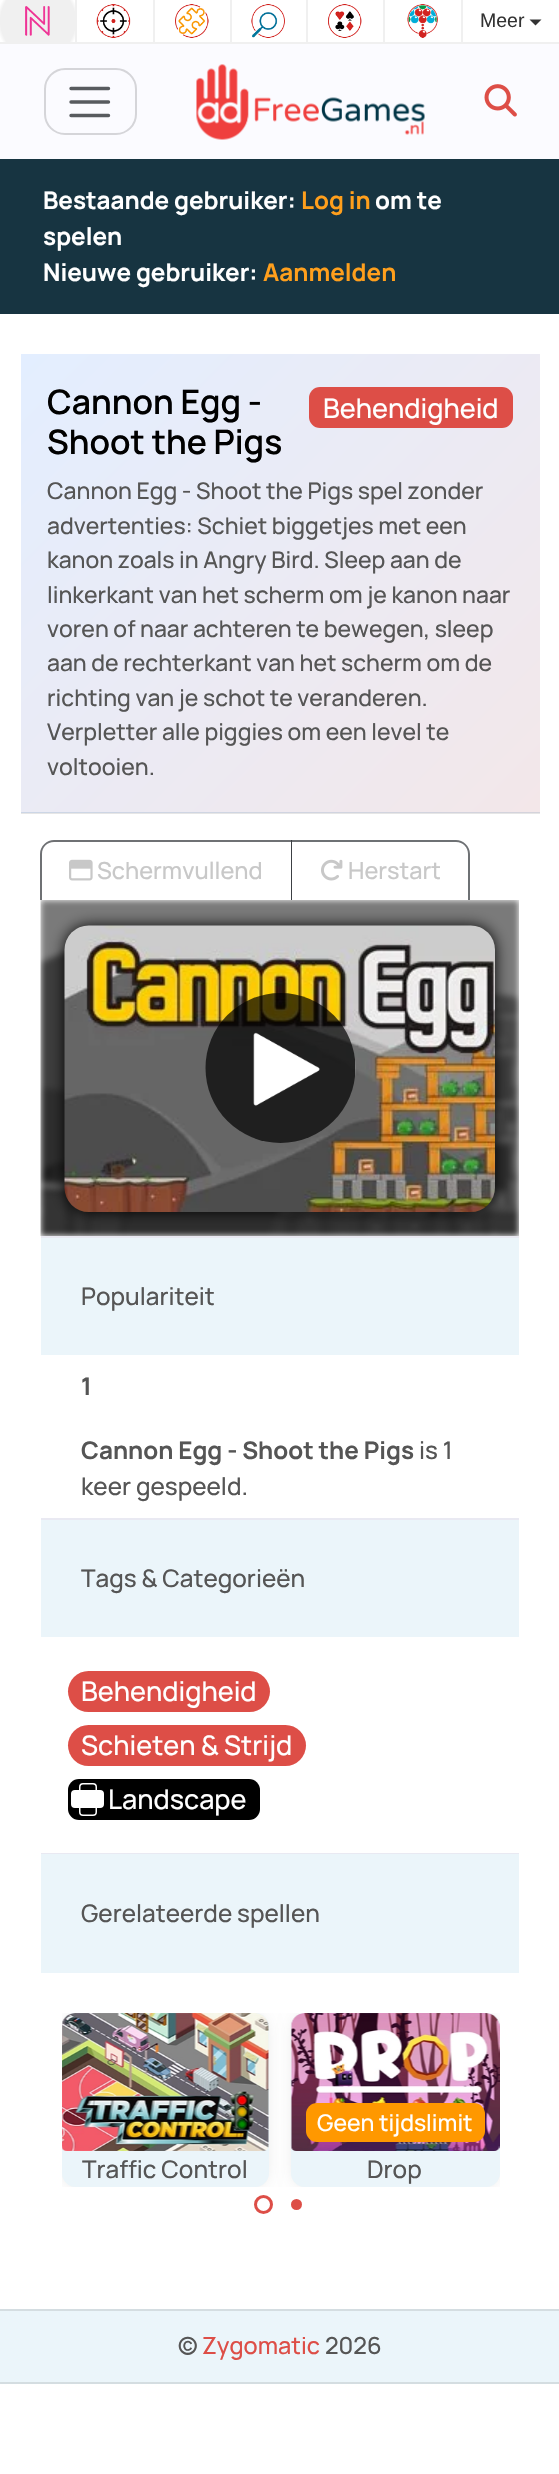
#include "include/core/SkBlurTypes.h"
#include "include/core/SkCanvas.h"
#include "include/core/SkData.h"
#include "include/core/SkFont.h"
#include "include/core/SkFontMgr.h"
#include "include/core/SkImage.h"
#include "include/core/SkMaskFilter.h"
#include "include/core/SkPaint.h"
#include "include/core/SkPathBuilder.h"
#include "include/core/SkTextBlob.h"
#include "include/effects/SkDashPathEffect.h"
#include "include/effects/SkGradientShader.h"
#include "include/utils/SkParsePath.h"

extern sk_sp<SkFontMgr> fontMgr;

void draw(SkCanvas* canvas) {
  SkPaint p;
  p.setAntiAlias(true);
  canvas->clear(SK_ColorWHITE);
  p.setColor(SkColorSetRGB(230, 230, 230));
  canvas->drawRect(SkRect::MakeLTRB(21, 813, 540, 814), p);
  p.setColor(SkColorSetRGB(240, 240, 240));
  canvas->drawRect(SkRect::MakeLTRB(0, 42, 559, 44), p);
  {
    const SkColor colors[] = {SkColorSetRGB(240, 240, 240), SK_ColorWHITE};
    const float stops[] = {0.1f, 0.11f};
    p.setShader(SkGradientShader::MakeRadial({38, 21}, 376, colors, stops, 2, SkTileMode::kClamp));
    p.setAlpha(255);
  }
  canvas->drawRect(SkRect::MakeLTRB(0, 0, 75, 42), p);
  canvas->drawImageRect(SkImages::DeferredFromEncodedData(SkData::MakeFromFileName("images/1.png")), SkRect::MakeLTRB(25, 6, 50, 36), SkSamplingOptions());
  p.setShader(nullptr);
  p.setColor(SkColorSetRGB(240, 240, 240));
  canvas->drawRect(SkRect::MakeLTRB(75, 0, 77, 42), p);
  canvas->drawImageRect(SkImages::DeferredFromEncodedData(SkData::MakeFromFileName("images/2.png")), SkRect::MakeLTRB(96, 4, 131, 38), SkSamplingOptions());
  canvas->drawRect(SkRect::MakeLTRB(153, 0, 155, 42), p);
  canvas->drawImageRect(SkImages::DeferredFromEncodedData(SkData::MakeFromFileName("images/3.png")), SkRect::MakeLTRB(175, 4, 209, 38), SkSamplingOptions());
  canvas->drawRect(SkRect::MakeLTRB(230, 0, 232, 42), p);
  canvas->drawImageRect(SkImages::DeferredFromEncodedData(SkData::MakeFromFileName("images/4.png")), SkRect::MakeLTRB(251, 4, 285, 38), SkSamplingOptions());
  canvas->drawRect(SkRect::MakeLTRB(306, 0, 308, 42), p);
  canvas->drawImageRect(SkImages::DeferredFromEncodedData(SkData::MakeFromFileName("images/5.png")), SkRect::MakeLTRB(328, 4, 362, 38), SkSamplingOptions());
  canvas->drawRect(SkRect::MakeLTRB(383, 0, 385, 42), p);
  canvas->drawImageRect(SkImages::DeferredFromEncodedData(SkData::MakeFromFileName("images/6.png")), SkRect::MakeLTRB(407, 4, 438, 38), SkSamplingOptions());
  canvas->drawRect(SkRect::MakeLTRB(461, 0, 463, 42), p);
  p.setColor(SkColorSetRGB(51, 51, 51));
  canvas->drawPath(SkPathBuilder().moveTo(529.5f, 19.5f).lineTo(541.5f, 19.5f).lineTo(535.5f, 25.5f).close().detach(), p);
  p.setColor(SkColorSetRGB(251, 251, 255));
  canvas->drawRect(SkRect::MakeLTRB(0, 44, 559, 159), p);
  p.setStyle(SkPaint::kStroke_Style);
  p.setStrokeWidth(2);
  p.setColor(SkColorSetRGB(213, 213, 217));
  canvas->drawRoundRect(SkRect::MakeLTRB(45, 69, 136, 134), 20, 20, p);
  p.setStrokeWidth(3.4f);
  p.setStrokeCap(SkPaint::kRound_Cap);
  p.setColor(SkColorSetRGB(88, 91, 95));
  canvas->drawPath(SkPathBuilder().moveTo(71, 88.5f).lineTo(108.5f, 88.5f).moveTo(71, 102).lineTo(108.5f, 102).moveTo(71, 115.5f).lineTo(108.5f, 115.5f).detach(), p);
  canvas->drawImageRect(SkImages::DeferredFromEncodedData(SkData::MakeFromFileName("images/7.png")), SkRect::MakeLTRB(196, 64, 425, 140), SkSamplingOptions());
  canvas->drawImageRect(SkImages::DeferredFromEncodedData(SkData::MakeFromFileName("images/8.png")), SkRect::MakeLTRB(484, 84, 517, 117), SkSamplingOptions());
  p.setStyle(SkPaint::kFill_Style);
  p.setColor(SkColorSetRGB(23, 52, 65));
  canvas->drawRect(SkRect::MakeLTRB(0, 159, 559, 314), p);
  {
    const SkColor colors[] = {SkColorSetRGB(243, 231, 233), SkColorSetRGB(227, 238, 255)};
    const float stops[] = {0, 1};
    const SkPoint ends[] = {{525, 827}, {36, 339}};
    p.setShader(SkGradientShader::MakeLinear(ends, colors, stops, 2, SkTileMode::kClamp));
    p.setAlpha(255);
  }
  canvas->drawRect(SkRect::MakeLTRB(21, 354, 540, 812), p);
  {
    const SkColor colors[] = {SkColorSetRGB(219, 208, 210), SkColorSetRGB(204, 214, 230)};
    const float stops[] = {0, 1};
    const SkPoint ends[] = {{525, 1284}, {36, 796}};
    p.setShader(SkGradientShader::MakeLinear(ends, colors, stops, 2, SkTileMode::kClamp));
    p.setAlpha(255);
  }
  canvas->drawRect(SkRect::MakeLTRB(21, 812, 540, 813), p);
  p.setShader(nullptr);
  p.setColor(SkColorSetRGB(221, 78, 71));
  canvas->drawRoundRect(SkRect::MakeLTRB(309, 387, 513, 428), 11, 11, p);
  p.setColor(SkColorSetRGB(111, 113, 116));
  canvas->drawPath(SkPathBuilder(SkPathFillType::kEvenOdd).moveTo(54, 840).lineTo(292, 840).lineTo(292, 900).lineTo(40, 900).lineTo(40, 854).cubicTo(40, 846, 47, 840, 54, 840).close().moveTo(54, 842).lineTo(291, 842).lineTo(291, 900).lineTo(42, 900).lineTo(42, 854).cubicTo(42, 847, 47, 842, 54, 842).close().detach(), p);
  canvas->drawImageRect(SkImages::DeferredFromEncodedData(SkData::MakeFromFileName("images/9.png")), SkRect::MakeLTRB(69, 859, 93, 881), SkSamplingOptions());
  p.setColor(SkColorSetARGB(166, 33, 37, 41));
  canvas->drawPath(SkPathBuilder(SkPathFillType::kEvenOdd).moveTo(291, 840).lineTo(456, 840).cubicTo(463, 840, 470, 846, 470, 854).lineTo(470, 900).lineTo(291, 900).close().moveTo(292, 842).lineTo(456, 842).cubicTo(463, 842, 468, 847, 468, 854).lineTo(468, 900).lineTo(292, 900).close().detach(), p);
  canvas->drawImageRect(SkImages::DeferredFromEncodedData(SkData::MakeFromFileName("images/10.png")), SkRect::MakeLTRB(321, 859, 343, 881), SkSamplingOptions());
  canvas->drawImageRect(SkImages::DeferredFromEncodedData(SkData::MakeFromFileName("images/11.png")), SkRect::MakeLTRB(40, 900, 519, 1236), SkSamplingOptions());
  p.setColor(SK_ColorBLACK);
  p.setMaskFilter(SkMaskFilter::MakeBlur(kNormal_SkBlurStyle, 7.5f));
  canvas->drawRoundRect(SkRect::MakeLTRB(65, 926, 495, 1212), 24, 24, p);
  p.setMaskFilter(nullptr);
  canvas->drawImageRect(SkImages::DeferredFromEncodedData(SkData::MakeFromFileName("images/12.png")), SkRect::MakeLTRB(64, 925, 495, 1212), SkSamplingOptions());
  canvas->drawImageRect(SkImages::DeferredFromEncodedData(SkData::MakeFromFileName("images/13.png")), SkRect::MakeLTRB(205, 993, 356, 1143), SkSamplingOptions());
  p.setColor(SkColorSetRGB(233, 233, 242));
  canvas->drawRect(SkRect::MakeLTRB(41, 1236, 519, 1238), p);
  p.setColor(SkColorSetRGB(235, 245, 250));
  canvas->drawRect(SkRect::MakeLTRB(41, 1238, 519, 1355), p);
  p.setColor(SkColorSetRGB(233, 233, 242));
  canvas->drawRect(SkRect::MakeLTRB(41, 1518, 519, 1520), p);
  p.setColor(SkColorSetRGB(235, 245, 250));
  canvas->drawRect(SkRect::MakeLTRB(41, 1520, 519, 1637), p);
  p.setColor(SkColorSetRGB(221, 78, 71));
  canvas->drawRoundRect(SkRect::MakeLTRB(68, 1671, 270, 1712), 20.5f, 20.5f, p);
  canvas->drawRoundRect(SkRect::MakeLTRB(68, 1725, 306, 1766), 20.5f, 20.5f, p);
  p.setColor(SK_ColorBLACK);
  canvas->drawRoundRect(SkRect::MakeLTRB(68, 1779, 260, 1820), 11, 11, p);
  p.setStyle(SkPaint::kStroke_Style);
  p.setStrokeWidth(1.5f);
  p.setStrokeCap(SkPaint::kButt_Cap);
  p.setColor(SK_ColorWHITE);
  canvas->drawRoundRect(SkRect::MakeLTRB(79.75f, 1783.75f, 96.25f, 1815.25f), 3.25f, 3.25f, p);
  p.setStyle(SkPaint::kFill_Style);
  canvas->drawRoundRect(SkRect::MakeLTRB(71.75f, 1790.75f, 103.25f, 1807.25f), 3.25f, 3.25f, p);
  p.setStyle(SkPaint::kStroke_Style);
  canvas->drawRoundRect(SkRect::MakeLTRB(71.75f, 1790.75f, 103.25f, 1807.25f), 3.25f, 3.25f, p);
  p.setStyle(SkPaint::kFill_Style);
  p.setColor(SkColorSetRGB(233, 233, 242));
  canvas->drawRect(SkRect::MakeLTRB(41, 1853, 519, 1854), p);
  p.setColor(SkColorSetRGB(235, 245, 250));
  canvas->drawRect(SkRect::MakeLTRB(41, 1854, 519, 1973), p);
  p.setStyle(SkPaint::kStroke_Style);
  p.setStrokeWidth(3);
  p.setColor(SkColorSetRGB(221, 78, 71));
  canvas->drawCircle(263.5f, 2204.5f, 8, p);
  canvas->save();
  canvas->clipRect(SkRect::MakeLTRB(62, 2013, 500, 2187));
  p.setStyle(SkPaint::kFill_Style);
  p.setColor(SkColorSetARGB(33, 0, 0, 0));
  p.setMaskFilter(SkMaskFilter::MakeBlur(kNormal_SkBlurStyle, 8.5f));
  canvas->drawRoundRect(SkRect::MakeLTRB(66, 2018, 264, 2183), 9, 9, p);
  p.setMaskFilter(nullptr);
  canvas->restore();
  p.setColor(SkColorSetRGB(235, 245, 250));
  canvas->drawRoundRect(SkRect::MakeLTRB(62, 2013, 269, 2187), 14, 14, p);
  canvas->drawImageRect(SkImages::DeferredFromEncodedData(SkData::MakeFromFileName("images/14.png")), SkRect::MakeLTRB(62, 2013, 269, 2151), SkSamplingOptions());
  p.setColor(SkColorSetRGB(221, 78, 71));
  canvas->drawCircle(296.5f, 2204.5f, 5.5f, p);
  canvas->save();
  canvas->clipRect(SkRect::MakeLTRB(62, 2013, 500, 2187));
  p.setColor(SkColorSetARGB(33, 0, 0, 0));
  p.setMaskFilter(SkMaskFilter::MakeBlur(kNormal_SkBlurStyle, 8.5f));
  canvas->drawRoundRect(SkRect::MakeLTRB(296, 2018, 495, 2183), 9, 9, p);
  p.setMaskFilter(nullptr);
  canvas->restore();
  p.setColor(SkColorSetRGB(235, 245, 250));
  canvas->drawRoundRect(SkRect::MakeLTRB(291, 2013, 500, 2187), 14, 14, p);
  canvas->drawImageRect(SkImages::DeferredFromEncodedData(SkData::MakeFromFileName("images/15.png")), SkRect::MakeLTRB(290, 2013, 500, 2151), SkSamplingOptions());
  p.setColor(SkColorSetRGB(255, 152, 0));
  canvas->drawRoundRect(SkRect::MakeLTRB(306, 2103, 485, 2142), 11, 11, p);
  p.setColor(SkColorSetRGB(235, 245, 250));
  canvas->drawRect(SkRect::MakeLTRB(0, 2311, 559, 2382), p);
  p.setColor(SkColorSetRGB(212, 221, 225));
  canvas->drawRect(SkRect::MakeLTRB(0, 2309, 559, 2311), p);
  canvas->drawRect(SkRect::MakeLTRB(0, 2382, 559, 2384), p);
  SkFont font1(fontMgr->matchFamilyStyle("Liberation Sans", SkFontStyle::Normal()), 19.5f);
  font1.setSubpixel(true);
  p.setColor(SkColorSetRGB(51, 51, 51));
  canvas->drawString("Meer", 480, 27, font1, p);
  SkFont font2(fontMgr->matchFamilyStyle("Manrope", SkFontStyle::Bold()), 24.25f);
  font2.setSubpixel(true);
  p.setColor(SK_ColorWHITE);
  canvas->drawString("Bestaande gebruiker:", 43, 209, font2, p);
  p.setColor(SkColorSetRGB(255, 159, 28));
  canvas->drawString("Log in", 301, 209, font2, p);
  p.setColor(SK_ColorWHITE);
  canvas->drawString("om te", 375, 209, font2, p);
  canvas->drawString("spelen", 43, 245, font2, p);
  canvas->drawString("Nieuwe gebruiker:", 43, 281, font2, p);
  p.setColor(SkColorSetRGB(255, 159, 28));
  canvas->drawString("Aanmelden", 263, 281, font2, p);
  SkFont font3(fontMgr->matchFamilyStyle("Manrope", SkFontStyle(600, SkFontStyle::kNormal_Width, SkFontStyle::kUpright_Slant)), 33.75f);
  font3.setSubpixel(true);
  p.setColor(SK_ColorBLACK);
  canvas->drawString("Cannon Egg -", 47, 414, font3, p);
  canvas->drawString("Shoot the Pigs", 47, 454, font3, p);
  SkFont font4(fontMgr->matchFamilyStyle("Manrope", SkFontStyle(500, SkFontStyle::kNormal_Width, SkFontStyle::kUpright_Slant)), 27);
  font4.setSubpixel(true);
  p.setColor(SK_ColorWHITE);
  canvas->drawString("Behendigheid", 323, 418, font4, p);
  SkFont font5(fontMgr->matchFamilyStyle("Manrope", SkFontStyle(500, SkFontStyle::kNormal_Width, SkFontStyle::kUpright_Slant)), 22.95f);
  font5.setSubpixel(true);
  p.setColor(SkColorSetRGB(85, 85, 85));
  canvas->drawString("Cannon Egg - Shoot the Pigs spel zonder", 47, 499, font5, p);
  canvas->drawString("advertenties: Schiet biggetjes met een", 47, 534, font5, p);
  canvas->drawString("kanon zoals in Angry Bird. Sleep aan de", 47, 568, font5, p);
  canvas->drawString("linkerkant van het scherm om je kanon naar", 47, 603, font5, p);
  canvas->drawString("voren of naar achteren te bewegen, sleep", 47, 637, font5, p);
  canvas->drawString("aan de rechterkant van het scherm om de", 47, 671, font5, p);
  canvas->drawString("richting van je schot te veranderen.", 47, 706, font5, p);
  canvas->drawString("Verpletter alle piggies om een level te", 47, 740, font5, p);
  canvas->drawString("voltooien.", 47, 775, font5, p);
  SkFont font6(fontMgr->matchFamilyStyle("Manrope", SkFontStyle(500, SkFontStyle::kNormal_Width, SkFontStyle::kUpright_Slant)), 23.5f);
  font6.setSubpixel(true);
  p.setColor(SkColorSetRGB(200, 200, 200));
  canvas->drawString("Schermvullend", 97, 879, font6, p);
  canvas->drawString("Herstart", 348, 879, font6, p);
  SkFont font7(fontMgr->matchFamilyStyle("Manrope", SkFontStyle(500, SkFontStyle::kNormal_Width, SkFontStyle::kUpright_Slant)), 24.25f);
  font7.setSubpixel(true);
  p.setColor(SkColorSetRGB(85, 85, 85));
  canvas->drawString("Populariteit", 81, 1305, font7, p);
  canvas->drawString("1", 81, 1395, font2, p);
  canvas->drawString("Cannon Egg - Shoot the Pigs", 81, 1459, font2, p);
  canvas->drawString("is 1", 419, 1459, font7, p);
  canvas->drawString("keer gespeeld.", 81, 1495, font7, p);
  canvas->drawString("Tags & Categorieën", 81, 1587, font7, p);
  p.setColor(SK_ColorWHITE);
  canvas->drawString("Behendigheid", 81, 1701, font4, p);
  canvas->drawString("Schieten & Strijd", 81, 1755, font4, p);
  canvas->drawString("Landscape", 108, 1809, font4, p);
  p.setColor(SkColorSetRGB(85, 85, 85));
  canvas->drawString("Gerelateerde spellen", 81, 1922, font7, p);
  canvas->drawString("Traffic Control", 82, 2178, font7, p);
  p.setColor(SK_ColorWHITE);
  canvas->drawString("Geen tijdslimit", 317, 2131, font5, p);
  p.setColor(SkColorSetRGB(85, 85, 85));
  canvas->drawString("Drop", 367, 2178, font7, p);
  canvas->drawString("©", 178, 2354, font6, p);
  p.setColor(SkColorSetRGB(221, 78, 71));
  canvas->drawString("Zygomatic", 202, 2354, font6, p);
  p.setColor(SkColorSetRGB(85, 85, 85));
  canvas->drawString("2026", 325, 2354, font6, p);
}
